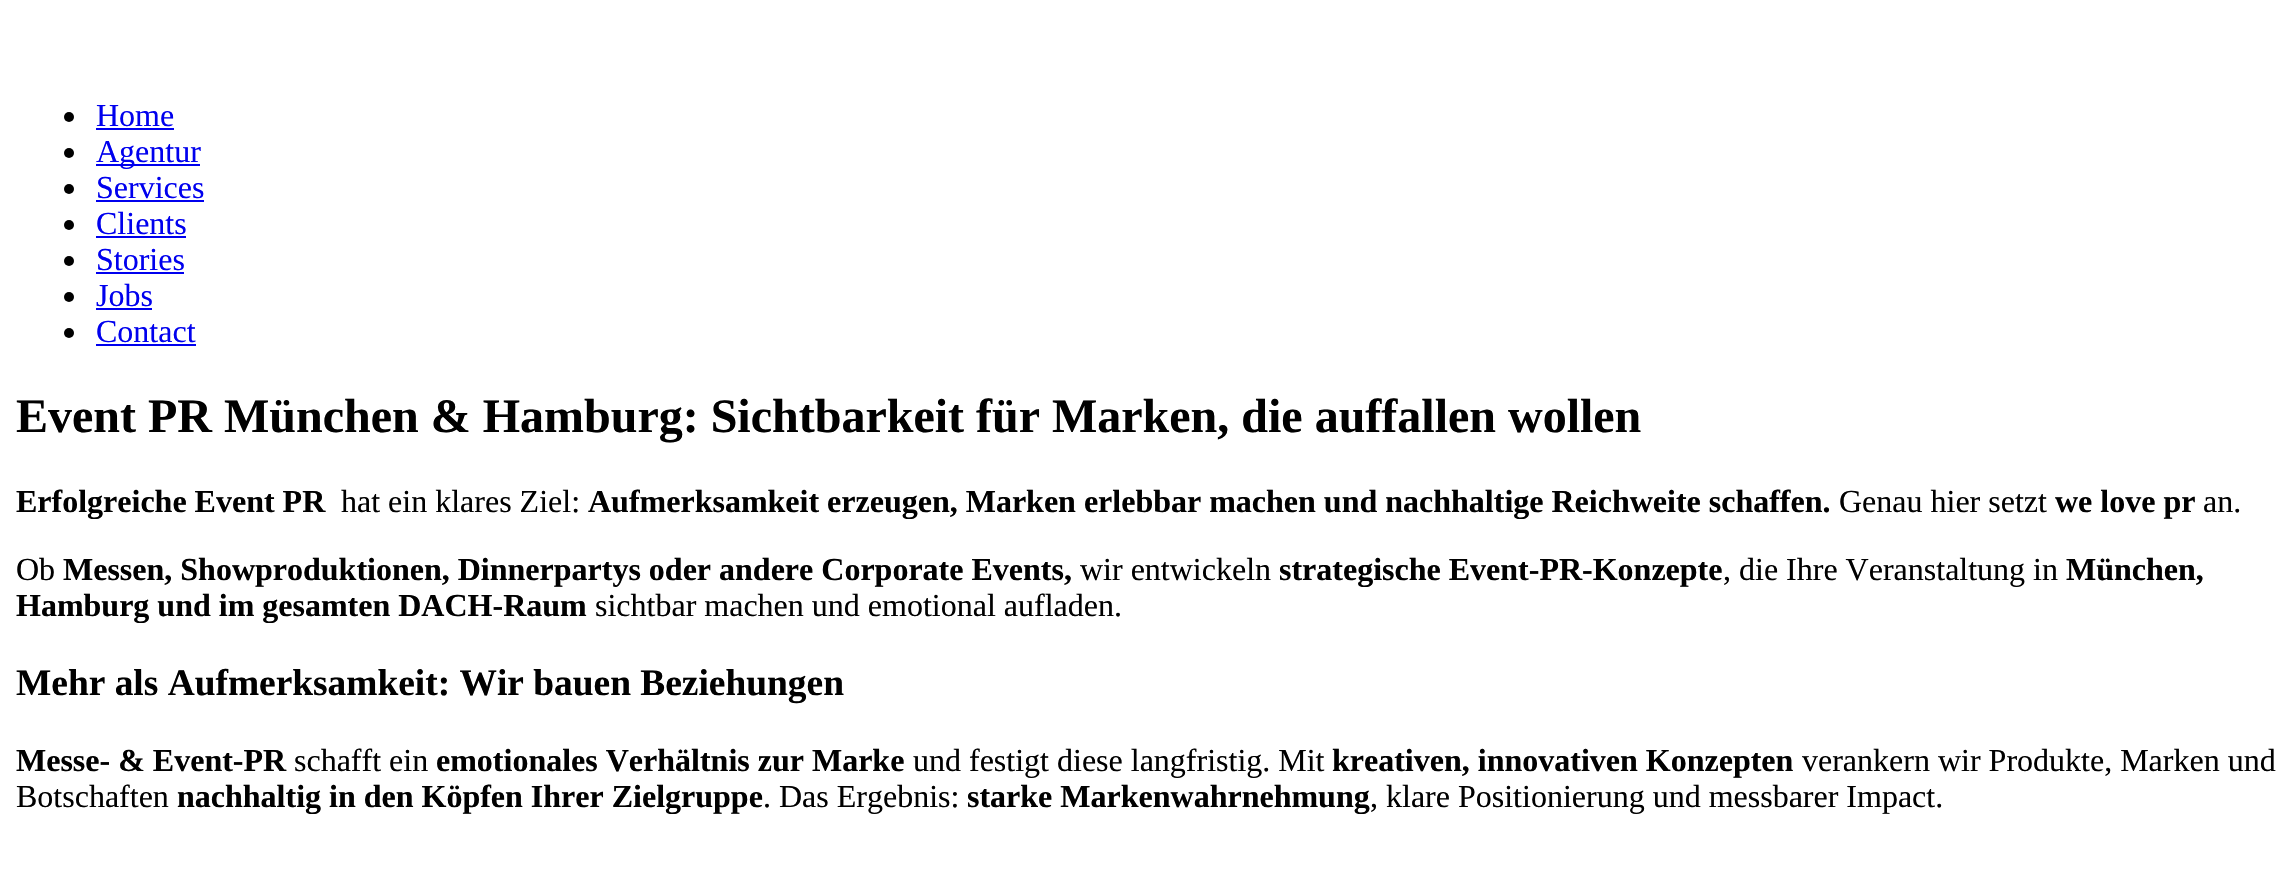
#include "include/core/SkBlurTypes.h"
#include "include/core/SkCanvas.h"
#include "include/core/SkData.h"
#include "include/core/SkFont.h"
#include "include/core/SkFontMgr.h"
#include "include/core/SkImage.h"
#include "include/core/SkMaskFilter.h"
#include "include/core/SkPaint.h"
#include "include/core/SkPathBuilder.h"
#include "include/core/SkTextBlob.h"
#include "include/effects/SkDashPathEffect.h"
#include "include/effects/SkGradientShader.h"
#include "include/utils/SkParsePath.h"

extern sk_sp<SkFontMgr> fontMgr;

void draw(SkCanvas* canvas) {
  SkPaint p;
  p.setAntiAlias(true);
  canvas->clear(SK_ColorWHITE);
  p.setColor(SK_ColorBLACK);
  canvas->drawCircle(69, 117, 5, p);
  p.setColor(SkColorSetRGB(0, 0, 238));
  canvas->drawRect(SkRect::MakeLTRB(96, 128, 174, 130), p);
  p.setColor(SK_ColorBLACK);
  canvas->drawCircle(69, 153, 5, p);
  p.setColor(SkColorSetRGB(0, 0, 238));
  canvas->drawRect(SkRect::MakeLTRB(96, 164, 200, 166), p);
  p.setColor(SK_ColorBLACK);
  canvas->drawCircle(69, 189, 5, p);
  p.setColor(SkColorSetRGB(0, 0, 238));
  canvas->drawRect(SkRect::MakeLTRB(96, 200, 204, 202), p);
  p.setColor(SK_ColorBLACK);
  canvas->drawCircle(69, 225, 5, p);
  p.setColor(SkColorSetRGB(0, 0, 238));
  canvas->drawRect(SkRect::MakeLTRB(96, 236, 186, 238), p);
  p.setColor(SK_ColorBLACK);
  canvas->drawCircle(69, 261, 5, p);
  p.setColor(SkColorSetRGB(0, 0, 238));
  canvas->drawRect(SkRect::MakeLTRB(96, 272, 184, 274), p);
  p.setColor(SK_ColorBLACK);
  canvas->drawCircle(69, 297, 5, p);
  p.setColor(SkColorSetRGB(0, 0, 238));
  canvas->drawRect(SkRect::MakeLTRB(96, 308, 152, 310), p);
  p.setColor(SK_ColorBLACK);
  canvas->drawCircle(69, 333, 5, p);
  p.setColor(SkColorSetRGB(0, 0, 238));
  canvas->drawRect(SkRect::MakeLTRB(96, 344, 196, 346), p);
  SkFont font1(fontMgr->matchFamilyStyle("Liberation Serif", SkFontStyle::Normal()), 32);
  font1.setSubpixel(true);
  canvas->drawString("Home", 96, 126, font1, p);
  canvas->drawString("Agentur", 96, 162, font1, p);
  canvas->drawString("Services", 96, 198, font1, p);
  canvas->drawString("Clients", 96, 234, font1, p);
  canvas->drawString("Stories", 96, 270, font1, p);
  canvas->drawString("Jobs", 96, 306, font1, p);
  canvas->drawString("Contact", 96, 342, font1, p);
  SkFont font2(fontMgr->matchFamilyStyle("Liberation Serif", SkFontStyle::Bold()), 48);
  font2.setSubpixel(true);
  p.setColor(SK_ColorBLACK);
  canvas->drawString("Event PR München & Hamburg: Sichtbarkeit für Marken, die auffallen wollen", 16, 432, font2, p);
  SkFont font3(fontMgr->matchFamilyStyle("Liberation Serif", SkFontStyle::Bold()), 32);
  font3.setSubpixel(true);
  canvas->drawString("Erfolgreiche Event PR", 16, 512, font3, p);
  canvas->drawString("hat ein klares Ziel:", 341, 512, font1, p);
  canvas->drawString("Aufmerksamkeit erzeugen, Marken erlebbar machen und nachhaltige Reichweite schaffen.", 588, 512, font3, p);
  canvas->drawString("Genau hier setzt", 1839, 512, font1, p);
  canvas->drawString("we love pr", 2055, 512, font3, p);
  canvas->drawString("an.", 2203, 512, font1, p);
  canvas->drawString("Ob", 16, 580, font1, p);
  canvas->drawString("Messen, Showproduktionen, Dinnerpartys oder andere Corporate Events,", 63, 580, font3, p);
  canvas->drawString("wir entwickeln", 1080, 580, font1, p);
  canvas->drawString("strategische Event-PR-Konzepte", 1279, 580, font3, p);
  canvas->drawString(", die Ihre Veranstaltung in", 1723, 580, font1, p);
  canvas->drawString("München,", 2066, 580, font3, p);
  canvas->drawString("Hamburg und im gesamten DACH-Raum", 16, 616, font3, p);
  canvas->drawString("sichtbar machen und emotional aufladen.", 595, 616, font1, p);
  SkFont font4(fontMgr->matchFamilyStyle("Liberation Serif", SkFontStyle::Bold()), 37.4f);
  font4.setSubpixel(true);
  canvas->drawString("Mehr als Aufmerksamkeit: Wir bauen Beziehungen", 16, 695, font4, p);
  canvas->drawString("Messe- & Event-PR", 16, 771, font3, p);
  canvas->drawString("schafft ein", 294, 771, font1, p);
  canvas->drawString("emotionales Verhältnis zur Marke", 436, 771, font3, p);
  canvas->drawString("und festigt diese langfristig. Mit", 913, 771, font1, p);
  canvas->drawString("kreativen, innovativen Konzepten", 1332, 771, font3, p);
  canvas->drawString("verankern wir Produkte, Marken und", 1802, 771, font1, p);
  canvas->drawString("Botschaften", 16, 807, font1, p);
  canvas->drawString("nachhaltig in den Köpfen Ihrer Zielgruppe", 177, 807, font3, p);
  canvas->drawString(". Das Ergebnis:", 763, 807, font1, p);
  canvas->drawString("starke Markenwahrnehmung", 967, 807, font3, p);
  canvas->drawString(", klare Positionierung und messbarer Impact.", 1370, 807, font1, p);
}
